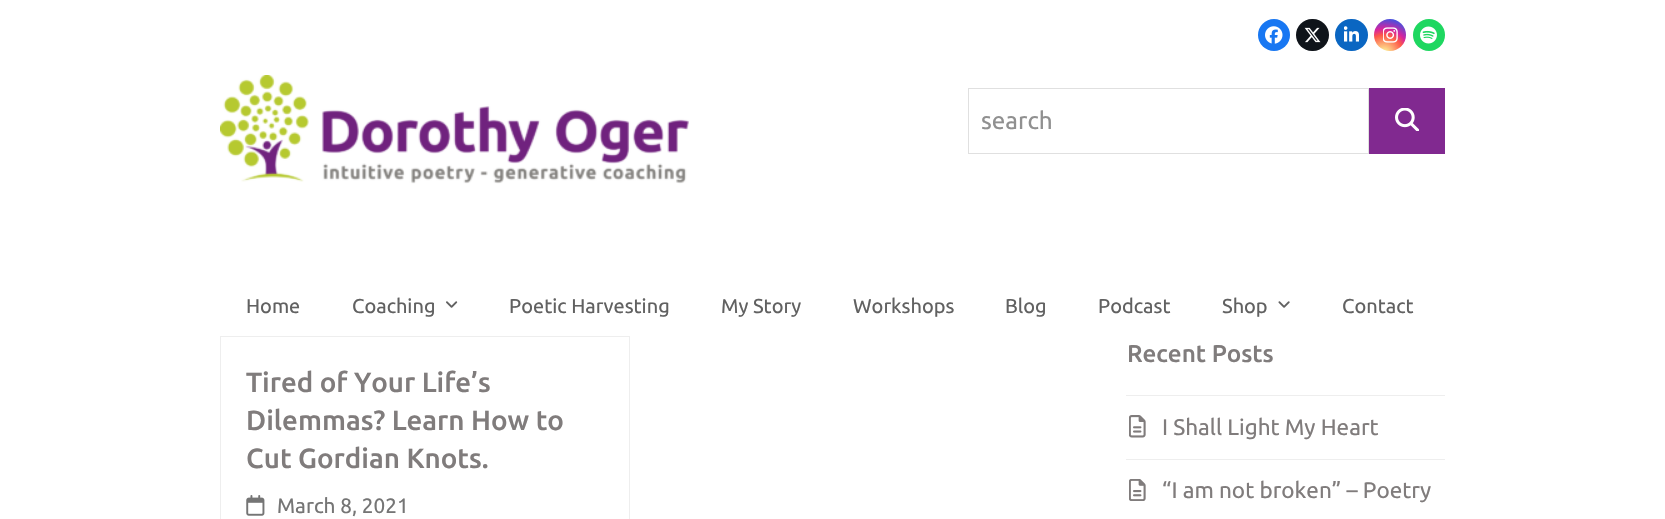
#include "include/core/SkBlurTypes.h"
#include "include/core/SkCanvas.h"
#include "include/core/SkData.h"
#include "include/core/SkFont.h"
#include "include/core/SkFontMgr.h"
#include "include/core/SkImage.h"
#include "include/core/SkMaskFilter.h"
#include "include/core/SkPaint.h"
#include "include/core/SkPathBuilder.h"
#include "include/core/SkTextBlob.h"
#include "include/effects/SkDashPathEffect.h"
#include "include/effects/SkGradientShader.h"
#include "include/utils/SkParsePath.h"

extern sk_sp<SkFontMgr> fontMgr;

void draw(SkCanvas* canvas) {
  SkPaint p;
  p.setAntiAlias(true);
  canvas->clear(SK_ColorWHITE);
  p.setColor(SkColorSetRGB(24, 119, 242));
  canvas->drawCircle(1274, 35, 16, p);
  canvas->drawImageRect(SkImages::DeferredFromEncodedData(SkData::MakeFromFileName("images/1.png")), SkRect::MakeLTRB(1265, 26, 1283, 44), SkSamplingOptions());
  p.setColor(SkColorSetRGB(15, 20, 26));
  canvas->drawRoundRect(SkRect::MakeLTRB(1296, 19, 1329, 51), 16, 16, p);
  canvas->drawImageRect(SkImages::DeferredFromEncodedData(SkData::MakeFromFileName("images/2.png")), SkRect::MakeLTRB(1304, 27, 1321, 43), SkSamplingOptions());
  p.setColor(SkColorSetRGB(10, 102, 194));
  canvas->drawRoundRect(SkRect::MakeLTRB(1335, 19, 1368, 51), 16, 16, p);
  canvas->drawImageRect(SkImages::DeferredFromEncodedData(SkData::MakeFromFileName("images/3.png")), SkRect::MakeLTRB(1344, 26, 1359, 42), SkSamplingOptions());
  {
    const SkColor colors[] = {SkColorSetRGB(253, 244, 151), SkColorSetRGB(253, 244, 151), SkColorSetRGB(253, 89, 73), SkColorSetRGB(214, 36, 159), SkColorSetRGB(40, 90, 235)};
    const float stops[] = {0, 0.05f, 0.45f, 0.6f, 0.9f};
    p.setShader(SkGradientShader::MakeRadial({1384, 54}, 42, colors, stops, 5, SkTileMode::kClamp));
    p.setAlpha(255);
  }
  canvas->drawCircle(1390, 35, 16, p);
  canvas->drawImageRect(SkImages::DeferredFromEncodedData(SkData::MakeFromFileName("images/4.png")), SkRect::MakeLTRB(1383, 27, 1398, 43), SkSamplingOptions());
  p.setShader(nullptr);
  p.setColor(SkColorSetRGB(30, 215, 96));
  canvas->drawCircle(1429, 35, 16, p);
  canvas->drawImageRect(SkImages::DeferredFromEncodedData(SkData::MakeFromFileName("images/5.png")), SkRect::MakeLTRB(1420, 26, 1437, 44), SkSamplingOptions());
  canvas->drawImageRect(SkImages::DeferredFromEncodedData(SkData::MakeFromFileName("images/6.png")), SkRect::MakeLTRB(220, 75, 689, 184), SkSamplingOptions());
  p.setStyle(SkPaint::kStroke_Style);
  p.setStrokeWidth(1);
  p.setColor(SkColorSetRGB(224, 224, 224));
  canvas->drawRect(SkRect::MakeLTRB(968.5f, 88.5f, 1368.5f, 153.5f), p);
  p.setStyle(SkPaint::kFill_Style);
  p.setColor(SkColorSetRGB(129, 41, 144));
  canvas->drawRect(SkRect::MakeLTRB(1369, 88, 1445, 154), p);
  canvas->drawImageRect(SkImages::DeferredFromEncodedData(SkData::MakeFromFileName("images/7.png")), SkRect::MakeLTRB(1395, 108, 1419, 131), SkSamplingOptions());
  canvas->drawImageRect(SkImages::DeferredFromEncodedData(SkData::MakeFromFileName("images/8.png")), SkRect::MakeLTRB(446, 301, 458, 308), SkSamplingOptions());
  canvas->drawImageRect(SkImages::DeferredFromEncodedData(SkData::MakeFromFileName("images/9.png")), SkRect::MakeLTRB(1278, 301, 1290, 308), SkSamplingOptions());
  p.setStyle(SkPaint::kStroke_Style);
  p.setColor(SkColorSetRGB(238, 238, 238));
  canvas->drawRect(SkRect::MakeLTRB(220.5f, 336.5f, 629.5f, 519.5f), p);
  canvas->drawImageRect(SkImages::DeferredFromEncodedData(SkData::MakeFromFileName("images/10.png")), SkRect::MakeLTRB(246, 495, 265, 516), SkSamplingOptions());
  p.setStyle(SkPaint::kFill_Style);
  canvas->drawRect(SkRect::MakeLTRB(1126, 395, 1445, 396), p);
  canvas->drawRect(SkRect::MakeLTRB(1126, 459, 1445, 460), p);
  canvas->drawImageRect(SkImages::DeferredFromEncodedData(SkData::MakeFromFileName("images/11.png")), SkRect::MakeLTRB(1129, 415, 1146, 438), SkSamplingOptions());
  canvas->drawImageRect(SkImages::DeferredFromEncodedData(SkData::MakeFromFileName("images/12.png")), SkRect::MakeLTRB(1129, 479, 1146, 501), SkSamplingOptions());
  SkFont font1(fontMgr->matchFamilyStyle("Ubuntu", SkFontStyle::Normal()), 24.25f);
  font1.setSubpixel(true);
  p.setColor(SkColorSetRGB(144, 144, 144));
  canvas->drawString("search", 981, 129, font1, p);
  SkFont font2(fontMgr->matchFamilyStyle("Ubuntu", SkFontStyle::Normal()), 20);
  font2.setSubpixel(true);
  p.setColor(SkColorSetRGB(97, 97, 97));
  canvas->drawString("Home", 246, 313, font2, p);
  canvas->drawString("Coaching", 352, 313, font2, p);
  canvas->drawString("Poetic Harvesting", 509, 313, font2, p);
  canvas->drawString("My Story", 721, 313, font2, p);
  canvas->drawString("Workshops", 853, 313, font2, p);
  canvas->drawString("Blog", 1005, 313, font2, p);
  canvas->drawString("Podcast", 1098, 313, font2, p);
  canvas->drawString("Shop", 1222, 313, font2, p);
  canvas->drawString("Contact", 1342, 313, font2, p);
  SkFont font3(fontMgr->matchFamilyStyle("Ubuntu", SkFontStyle(500, SkFontStyle::kNormal_Width, SkFontStyle::kUpright_Slant)), 27.75f);
  font3.setSubpixel(true);
  p.setColor(SkColorSetRGB(128, 124, 124));
  canvas->drawString("Tired of Your Life’s", 246, 392, font3, p);
  canvas->drawString("Dilemmas? Learn How to", 246, 430, font3, p);
  canvas->drawString("Cut Gordian Knots.", 246, 468, font3, p);
  SkFont font4(fontMgr->matchFamilyStyle("Ubuntu", SkFontStyle::Normal()), 20.75f);
  font4.setSubpixel(true);
  p.setColor(SkColorSetRGB(117, 117, 117));
  canvas->drawString("March 8, 2021", 277, 513, font4, p);
  SkFont font5(fontMgr->matchFamilyStyle("Ubuntu", SkFontStyle(500, SkFontStyle::kNormal_Width, SkFontStyle::kUpright_Slant)), 24.25f);
  font5.setSubpixel(true);
  p.setColor(SkColorSetRGB(128, 124, 124));
  canvas->drawString("Recent Posts", 1127, 362, font5, p);
  SkFont font6(fontMgr->matchFamilyStyle("Ubuntu", SkFontStyle::Normal()), 22.5f);
  font6.setSubpixel(true);
  canvas->drawString("I Shall Light My Heart", 1162, 435, font6, p);
  canvas->drawString("“I am not broken” – Poetry", 1162, 498, font6, p);
}
